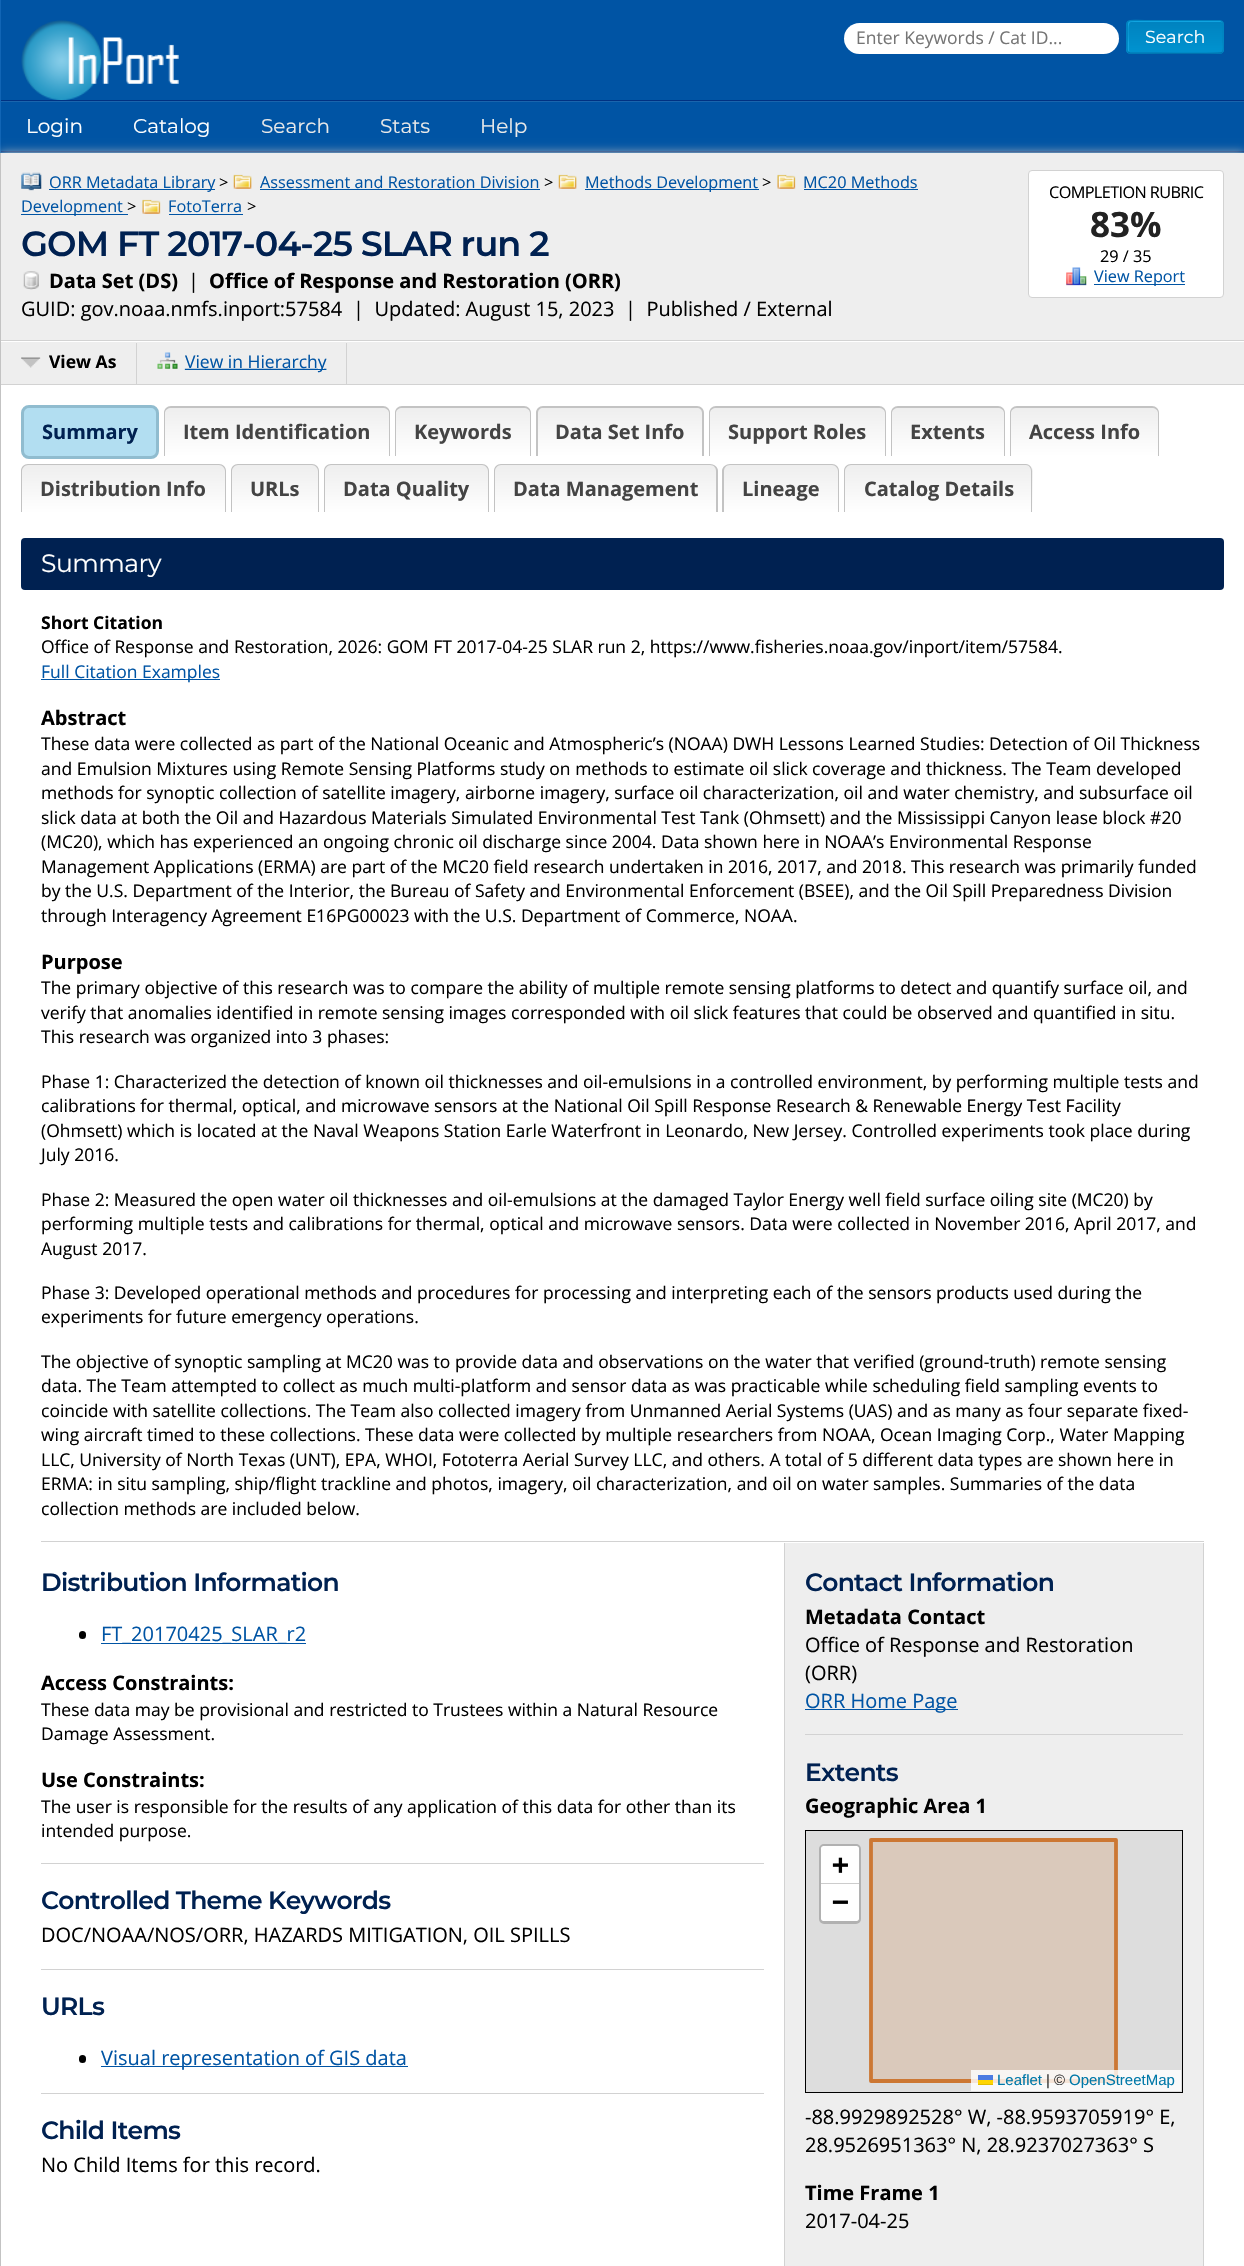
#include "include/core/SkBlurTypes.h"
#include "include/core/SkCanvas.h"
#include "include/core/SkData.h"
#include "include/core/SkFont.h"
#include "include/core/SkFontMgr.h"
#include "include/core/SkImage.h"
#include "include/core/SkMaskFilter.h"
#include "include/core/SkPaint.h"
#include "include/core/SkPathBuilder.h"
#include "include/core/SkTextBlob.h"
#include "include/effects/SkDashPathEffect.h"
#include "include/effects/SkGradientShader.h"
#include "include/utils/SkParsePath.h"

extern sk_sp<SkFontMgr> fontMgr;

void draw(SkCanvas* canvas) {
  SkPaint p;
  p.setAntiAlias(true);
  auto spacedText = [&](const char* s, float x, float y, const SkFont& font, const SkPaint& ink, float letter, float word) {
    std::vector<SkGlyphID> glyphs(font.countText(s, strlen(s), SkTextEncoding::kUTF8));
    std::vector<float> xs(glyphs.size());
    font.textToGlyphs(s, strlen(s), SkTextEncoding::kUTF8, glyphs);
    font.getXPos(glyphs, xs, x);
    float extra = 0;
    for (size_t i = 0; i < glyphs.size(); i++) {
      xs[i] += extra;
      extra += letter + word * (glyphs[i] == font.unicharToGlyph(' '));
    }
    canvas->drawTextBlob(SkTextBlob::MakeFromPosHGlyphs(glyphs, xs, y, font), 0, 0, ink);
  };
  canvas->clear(SkColorSetRGB(0, 84, 164));
  p.setColor(SkColorSetRGB(17, 101, 181));
  canvas->drawRect(SkRect::MakeLTRB(0, 0, 1, 100), p);
  canvas->drawImageRect(SkImages::DeferredFromEncodedData(SkData::MakeFromFileName("images/1.png")), SkRect::MakeLTRB(21, 20, 179, 100), SkSamplingOptions());
  p.setColor(SK_ColorWHITE);
  canvas->drawRoundRect(SkRect::MakeLTRB(844, 23, 1119, 54), 15.5f, 15.5f, p);
  canvas->save();
  canvas->clipPath(SkPathBuilder().moveTo(1130, 20).lineTo(1220, 20).cubicTo(1222, 20, 1224, 22, 1224, 24).lineTo(1224, 50).cubicTo(1224, 52, 1222, 54, 1220, 54).lineTo(1130, 54).cubicTo(1128, 54, 1126, 52, 1126, 50).lineTo(1126, 24).cubicTo(1126, 22, 1128, 20, 1130, 20).close().detach(), true);
  {
    const SkColor colors[] = {SkColorSetRGB(0, 147, 208), SkColorSetRGB(0, 130, 191)};
    const float stops[] = {0, 1};
    const SkPoint ends[] = {{1175, 53}, {1175, 21}};
    p.setShader(SkGradientShader::MakeLinear(ends, colors, stops, 2, SkTileMode::kClamp));
    p.setAlpha(255);
  }
  canvas->drawRect(SkRect::MakeLTRB(1126, 21, 1224, 53), p);
  {
    const SkColor colors[] = {SkColorSetRGB(0, 147, 208), SkColorSetRGB(0, 130, 191)};
    const float stops[] = {0, 1};
    const SkPoint ends[] = {{1175, 84}, {1175, 53}};
    p.setShader(SkGradientShader::MakeLinear(ends, colors, stops, 2, SkTileMode::kClamp));
    p.setAlpha(255);
  }
  canvas->drawRect(SkRect::MakeLTRB(1126, 53, 1224, 54), p);
  canvas->restore();
  p.setShader(nullptr);
  p.setColor(SkColorSetRGB(17, 164, 225));
  canvas->drawPath(SkPathBuilder().moveTo(1131, 22).lineTo(1221, 22).lineTo(1223, 23).cubicTo(1223, 22, 1222, 21, 1220, 21).lineTo(1130, 21).cubicTo(1129, 21, 1128, 22, 1128, 24).lineTo(1128, 50).cubicTo(1128, 51, 1129, 52, 1129, 53).lineTo(1129, 42).cubicTo(1129, 39, 1127, 22, 1131, 22).close().detach(), p);
  p.setStyle(SkPaint::kStroke_Style);
  p.setStrokeWidth(1.2f);
  p.setColor(SkColorSetRGB(0, 113, 174));
  canvas->drawPath(SkPathBuilder().moveTo(1222, 52).lineTo(1222, 52.5f).cubicTo(1220, 54, 1153.5f, 53, 1145, 53).lineTo(1130, 53).lineTo(1128, 52).detach(), p);
  p.setColor(SkColorSetRGB(0, 130, 191));
  canvas->drawPath(SkPathBuilder().moveTo(1128, 52).cubicTo(1125.5f, 50, 1127, 39.5f, 1127, 37).cubicTo(1127, 17, 1124, 20.5f, 1145, 20.5f).lineTo(1220, 20.5f).cubicTo(1224, 20.5f, 1223, 25.5f, 1223, 28).lineTo(1223, 41).cubicTo(1223, 44, 1224.5f, 50, 1222, 52).detach(), p);
  p.setStyle(SkPaint::kFill_Style);
  p.setColor(SkColorSetRGB(0, 50, 130));
  canvas->drawRect(SkRect::MakeLTRB(0, 151, 1244, 152), p);
  p.setColor(SkColorSetRGB(17, 101, 181));
  canvas->drawRect(SkRect::MakeLTRB(0, 100, 1, 153), p);
  p.setColor(SkColorSetRGB(26, 101, 173));
  canvas->drawRect(SkRect::MakeLTRB(1, 101, 1244, 102), p);
  p.setColor(SkColorSetRGB(0, 50, 130));
  canvas->drawRect(SkRect::MakeLTRB(1, 100, 1244, 101), p);
  p.setColor(SkColorSetRGB(187, 187, 187));
  p.setMaskFilter(SkMaskFilter::MakeBlur(kNormal_SkBlurStyle, 5));
  canvas->drawRect(SkRect::MakeLTRB(0, 153, 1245, 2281), p);
  p.setMaskFilter(nullptr);
  p.setColor(SK_ColorWHITE);
  canvas->drawRect(SkRect::MakeLTRB(1, 385, 1244, 2266), p);
  p.setColor(SkColorSetRGB(195, 195, 195));
  canvas->drawRect(SkRect::MakeLTRB(0, 153, 1, 2266), p);
  p.setColor(SkColorSetRGB(238, 238, 238));
  canvas->drawRect(SkRect::MakeLTRB(1, 153, 1244, 340), p);
  p.setColor(SkColorSetRGB(210, 210, 210));
  canvas->drawRect(SkRect::MakeLTRB(1, 340, 1244, 341), p);
  canvas->drawImageRect(SkImages::DeferredFromEncodedData(SkData::MakeFromFileName("images/2.png")), SkRect::MakeLTRB(21, 172, 42, 191), SkSamplingOptions());
  p.setColor(SkColorSetRGB(0, 84, 164));
  canvas->drawRect(SkRect::MakeLTRB(49, 189, 215, 190), p);
  canvas->drawImageRect(SkImages::DeferredFromEncodedData(SkData::MakeFromFileName("images/3.png")), SkRect::MakeLTRB(233, 174, 252, 189), SkSamplingOptions());
  canvas->drawRect(SkRect::MakeLTRB(260, 189, 540, 190), p);
  canvas->drawImageRect(SkImages::DeferredFromEncodedData(SkData::MakeFromFileName("images/4.png")), SkRect::MakeLTRB(558, 174, 577, 189), SkSamplingOptions());
  canvas->drawRect(SkRect::MakeLTRB(585, 189, 759, 190), p);
  canvas->drawImageRect(SkImages::DeferredFromEncodedData(SkData::MakeFromFileName("images/5.png")), SkRect::MakeLTRB(777, 174, 796, 189), SkSamplingOptions());
  canvas->drawRect(SkRect::MakeLTRB(804, 189, 918, 190), p);
  canvas->drawRect(SkRect::MakeLTRB(21, 214, 128, 215), p);
  canvas->drawImageRect(SkImages::DeferredFromEncodedData(SkData::MakeFromFileName("images/5.png")), SkRect::MakeLTRB(142, 199, 161, 214), SkSamplingOptions());
  canvas->drawRect(SkRect::MakeLTRB(169, 214, 243, 215), p);
  p.setColor(SK_ColorWHITE);
  canvas->drawRoundRect(SkRect::MakeLTRB(1028.5f, 170.5f, 1223.5f, 297.5f), 3.5f, 3.5f, p);
  p.setStyle(SkPaint::kStroke_Style);
  p.setStrokeWidth(1);
  p.setColor(SkColorSetRGB(210, 210, 210));
  canvas->drawRoundRect(SkRect::MakeLTRB(1028.5f, 170.5f, 1223.5f, 297.5f), 3.5f, 3.5f, p);
  canvas->drawImageRect(SkImages::DeferredFromEncodedData(SkData::MakeFromFileName("images/6.png")), SkRect::MakeLTRB(1066, 267, 1087, 286), SkSamplingOptions());
  p.setStyle(SkPaint::kFill_Style);
  p.setColor(SkColorSetRGB(0, 84, 164));
  canvas->drawRect(SkRect::MakeLTRB(1094, 284, 1185, 285), p);
  canvas->drawImageRect(SkImages::DeferredFromEncodedData(SkData::MakeFromFileName("images/7.png")), SkRect::MakeLTRB(23, 271, 39, 290), SkSamplingOptions());
  p.setColor(SkColorSetRGB(238, 238, 238));
  canvas->drawRect(SkRect::MakeLTRB(1, 342, 1244, 384), p);
  p.setColor(SK_ColorWHITE);
  canvas->drawRect(SkRect::MakeLTRB(1, 341, 1244, 342), p);
  p.setColor(SkColorSetRGB(210, 210, 210));
  canvas->drawRect(SkRect::MakeLTRB(1, 384, 1244, 385), p);
  canvas->drawRect(SkRect::MakeLTRB(136, 343, 137, 384), p);
  canvas->drawImageRect(SkImages::DeferredFromEncodedData(SkData::MakeFromFileName("images/8.png")), SkRect::MakeLTRB(21, 357, 41, 368), SkSamplingOptions());
  canvas->drawRect(SkRect::MakeLTRB(346, 343, 347, 384), p);
  canvas->drawImageRect(SkImages::DeferredFromEncodedData(SkData::MakeFromFileName("images/9.png")), SkRect::MakeLTRB(157, 352, 327, 370), SkSamplingOptions());
  p.setColor(SkColorSetRGB(0, 84, 164));
  canvas->drawRect(SkRect::MakeLTRB(318, 369, 326, 370), p);
  p.setColor(SkColorSetRGB(178, 222, 241));
  canvas->drawRoundRect(SkRect::MakeLTRB(22.5f, 406.5f, 157.5f, 457.5f), 6.5f, 6.5f, p);
  p.setStyle(SkPaint::kStroke_Style);
  p.setStrokeWidth(3);
  p.setColor(SkColorSetRGB(144, 188, 207));
  canvas->drawRoundRect(SkRect::MakeLTRB(22.5f, 406.5f, 157.5f, 457.5f), 6.5f, 6.5f, p);
  canvas->save();
  canvas->clipPath(SkPathBuilder().moveTo(172, 406).lineTo(382, 406).cubicTo(386.5f, 406, 390, 409.5f, 390, 414).lineTo(390, 456).lineTo(164, 456).lineTo(164, 414).cubicTo(164, 409.5f, 167.5f, 406, 172, 406).close().detach(), true);
  p.setStyle(SkPaint::kFill_Style);
  {
    const SkColor colors[] = {SkColorSetRGB(238, 238, 238), SK_ColorWHITE};
    const float stops[] = {0, 1};
    const SkPoint ends[] = {{277, 408}, {277, 456}};
    p.setShader(SkGradientShader::MakeLinear(ends, colors, stops, 2, SkTileMode::kClamp));
    p.setAlpha(255);
  }
  canvas->drawRect(SkRect::MakeLTRB(164, 408, 390, 456), p);
  canvas->restore();
  p.setShader(nullptr);
  p.setColor(SkColorSetRGB(195, 195, 195));
  canvas->drawPath(SkPathBuilder(SkPathFillType::kEvenOdd).moveTo(171, 406).lineTo(383, 406).cubicTo(387, 406, 390, 409, 390, 413).lineTo(390, 456).lineTo(164, 456).lineTo(164, 413).cubicTo(164, 409, 167, 406, 171, 406).close().moveTo(171, 408).lineTo(383, 408).cubicTo(386, 408, 389, 410, 389, 413).lineTo(389, 456).lineTo(165, 456).lineTo(165, 413).cubicTo(165, 410, 168, 408, 171, 408).close().detach(), p);
  canvas->save();
  canvas->clipPath(SkPathBuilder().moveTo(403, 406).lineTo(523, 406).cubicTo(527.5f, 406, 531, 409.5f, 531, 414).lineTo(531, 456).lineTo(395, 456).lineTo(395, 414).cubicTo(395, 409.5f, 398.5f, 406, 403, 406).close().detach(), true);
  {
    const SkColor colors[] = {SkColorSetRGB(238, 238, 238), SK_ColorWHITE};
    const float stops[] = {0, 1};
    const SkPoint ends[] = {{463, 408}, {463, 456}};
    p.setShader(SkGradientShader::MakeLinear(ends, colors, stops, 2, SkTileMode::kClamp));
    p.setAlpha(255);
  }
  canvas->drawRect(SkRect::MakeLTRB(395, 408, 531, 456), p);
  canvas->restore();
  p.setShader(nullptr);
  p.setColor(SkColorSetRGB(195, 195, 195));
  canvas->drawPath(SkPathBuilder(SkPathFillType::kEvenOdd).moveTo(402, 406).lineTo(524, 406).cubicTo(528, 406, 531, 409, 531, 413).lineTo(531, 456).lineTo(395, 456).lineTo(395, 413).cubicTo(395, 409, 398, 406, 402, 406).close().moveTo(402, 408).lineTo(524, 408).cubicTo(527, 408, 530, 410, 530, 413).lineTo(530, 456).lineTo(396, 456).lineTo(396, 413).cubicTo(396, 410, 399, 408, 402, 408).close().detach(), p);
  canvas->save();
  canvas->clipPath(SkPathBuilder().moveTo(544, 406).lineTo(696, 406).cubicTo(700.5f, 406, 704, 409.5f, 704, 414).lineTo(704, 456).lineTo(536, 456).lineTo(536, 414).cubicTo(536, 409.5f, 539.5f, 406, 544, 406).close().detach(), true);
  {
    const SkColor colors[] = {SkColorSetRGB(238, 238, 238), SK_ColorWHITE};
    const float stops[] = {0, 1};
    const SkPoint ends[] = {{620, 408}, {620, 456}};
    p.setShader(SkGradientShader::MakeLinear(ends, colors, stops, 2, SkTileMode::kClamp));
    p.setAlpha(255);
  }
  canvas->drawRect(SkRect::MakeLTRB(536, 408, 704, 456), p);
  canvas->restore();
  p.setShader(nullptr);
  p.setColor(SkColorSetRGB(195, 195, 195));
  canvas->drawPath(SkPathBuilder(SkPathFillType::kEvenOdd).moveTo(543, 406).lineTo(697, 406).cubicTo(701, 406, 704, 409, 704, 413).lineTo(704, 456).lineTo(536, 456).lineTo(536, 413).cubicTo(536, 409, 539, 406, 543, 406).close().moveTo(543, 408).lineTo(697, 408).cubicTo(700, 408, 702, 410, 702, 413).lineTo(702, 456).lineTo(538, 456).lineTo(538, 413).cubicTo(538, 410, 540, 408, 543, 408).close().detach(), p);
  canvas->save();
  canvas->clipPath(SkPathBuilder().moveTo(717, 406).lineTo(878, 406).cubicTo(882.5f, 406, 886, 409.5f, 886, 414).lineTo(886, 456).lineTo(709, 456).lineTo(709, 414).cubicTo(709, 409.5f, 712.5f, 406, 717, 406).close().detach(), true);
  {
    const SkColor colors[] = {SkColorSetRGB(238, 238, 238), SK_ColorWHITE};
    const float stops[] = {0, 1};
    const SkPoint ends[] = {{798, 408}, {798, 456}};
    p.setShader(SkGradientShader::MakeLinear(ends, colors, stops, 2, SkTileMode::kClamp));
    p.setAlpha(255);
  }
  canvas->drawRect(SkRect::MakeLTRB(709, 408, 886, 456), p);
  canvas->restore();
  p.setShader(nullptr);
  p.setColor(SkColorSetRGB(195, 195, 195));
  canvas->drawPath(SkPathBuilder(SkPathFillType::kEvenOdd).moveTo(716, 406).lineTo(879, 406).cubicTo(883, 406, 886, 409, 886, 413).lineTo(886, 456).lineTo(709, 456).lineTo(709, 413).cubicTo(709, 409, 712, 406, 716, 406).close().moveTo(716, 408).lineTo(879, 408).cubicTo(882, 408, 885, 410, 885, 413).lineTo(885, 456).lineTo(710, 456).lineTo(710, 413).cubicTo(710, 410, 713, 408, 716, 408).close().detach(), p);
  canvas->save();
  canvas->clipPath(SkPathBuilder().moveTo(899, 406).lineTo(997, 406).cubicTo(1001.5f, 406, 1005, 409.5f, 1005, 414).lineTo(1005, 456).lineTo(891, 456).lineTo(891, 414).cubicTo(891, 409.5f, 894.5f, 406, 899, 406).close().detach(), true);
  {
    const SkColor colors[] = {SkColorSetRGB(238, 238, 238), SK_ColorWHITE};
    const float stops[] = {0, 1};
    const SkPoint ends[] = {{948, 408}, {948, 456}};
    p.setShader(SkGradientShader::MakeLinear(ends, colors, stops, 2, SkTileMode::kClamp));
    p.setAlpha(255);
  }
  canvas->drawRect(SkRect::MakeLTRB(891, 408, 1005, 456), p);
  canvas->restore();
  p.setShader(nullptr);
  p.setColor(SkColorSetRGB(195, 195, 195));
  canvas->drawPath(SkPathBuilder(SkPathFillType::kEvenOdd).moveTo(898, 406).lineTo(998, 406).cubicTo(1002, 406, 1005, 409, 1005, 413).lineTo(1005, 456).lineTo(891, 456).lineTo(891, 413).cubicTo(891, 409, 894, 406, 898, 406).close().moveTo(898, 408).lineTo(998, 408).cubicTo(1001, 408, 1004, 410, 1004, 413).lineTo(1004, 456).lineTo(892, 456).lineTo(892, 413).cubicTo(892, 410, 895, 408, 898, 408).close().detach(), p);
  canvas->save();
  canvas->clipPath(SkPathBuilder().moveTo(1018, 406).lineTo(1151, 406).cubicTo(1155.5f, 406, 1159, 409.5f, 1159, 414).lineTo(1159, 456).lineTo(1010, 456).lineTo(1010, 414).cubicTo(1010, 409.5f, 1013.5f, 406, 1018, 406).close().detach(), true);
  {
    const SkColor colors[] = {SkColorSetRGB(238, 238, 238), SK_ColorWHITE};
    const float stops[] = {0, 1};
    const SkPoint ends[] = {{1084, 408}, {1084, 456}};
    p.setShader(SkGradientShader::MakeLinear(ends, colors, stops, 2, SkTileMode::kClamp));
    p.setAlpha(255);
  }
  canvas->drawRect(SkRect::MakeLTRB(1010, 408, 1159, 456), p);
  canvas->restore();
  p.setShader(nullptr);
  p.setColor(SkColorSetRGB(195, 195, 195));
  canvas->drawPath(SkPathBuilder(SkPathFillType::kEvenOdd).moveTo(1017, 406).lineTo(1152, 406).cubicTo(1156, 406, 1159, 409, 1159, 413).lineTo(1159, 456).lineTo(1010, 456).lineTo(1010, 413).cubicTo(1010, 409, 1013, 406, 1017, 406).close().moveTo(1017, 408).lineTo(1152, 408).cubicTo(1155, 408, 1158, 410, 1158, 413).lineTo(1158, 456).lineTo(1011, 456).lineTo(1011, 413).cubicTo(1011, 410, 1014, 408, 1017, 408).close().detach(), p);
  canvas->save();
  canvas->clipPath(SkPathBuilder().moveTo(29, 464).lineTo(218, 464).cubicTo(222.5f, 464, 226, 467.5f, 226, 472).lineTo(226, 513).lineTo(21, 513).lineTo(21, 472).cubicTo(21, 467.5f, 24.5f, 464, 29, 464).close().detach(), true);
  {
    const SkColor colors[] = {SkColorSetRGB(238, 238, 238), SK_ColorWHITE};
    const float stops[] = {0, 1};
    const SkPoint ends[] = {{124, 465}, {124, 513}};
    p.setShader(SkGradientShader::MakeLinear(ends, colors, stops, 2, SkTileMode::kClamp));
    p.setAlpha(255);
  }
  canvas->drawRect(SkRect::MakeLTRB(21, 465, 226, 513), p);
  canvas->restore();
  p.setShader(nullptr);
  p.setColor(SkColorSetRGB(195, 195, 195));
  canvas->drawPath(SkPathBuilder(SkPathFillType::kEvenOdd).moveTo(28, 464).lineTo(219, 464).cubicTo(223, 464, 226, 467, 226, 471).lineTo(226, 512).lineTo(21, 512).lineTo(21, 471).cubicTo(21, 467, 24, 464, 28, 464).close().moveTo(28, 465).lineTo(219, 465).cubicTo(222, 465, 225, 468, 225, 471).lineTo(225, 512).lineTo(22, 512).lineTo(22, 471).cubicTo(22, 468, 25, 465, 28, 465).close().detach(), p);
  canvas->save();
  canvas->clipPath(SkPathBuilder().moveTo(239, 464).lineTo(311, 464).cubicTo(315.5f, 464, 319, 467.5f, 319, 472).lineTo(319, 513).lineTo(231, 513).lineTo(231, 472).cubicTo(231, 467.5f, 234.5f, 464, 239, 464).close().detach(), true);
  {
    const SkColor colors[] = {SkColorSetRGB(238, 238, 238), SK_ColorWHITE};
    const float stops[] = {0, 1};
    const SkPoint ends[] = {{275, 465}, {275, 513}};
    p.setShader(SkGradientShader::MakeLinear(ends, colors, stops, 2, SkTileMode::kClamp));
    p.setAlpha(255);
  }
  canvas->drawRect(SkRect::MakeLTRB(231, 465, 319, 513), p);
  canvas->restore();
  p.setShader(nullptr);
  p.setColor(SkColorSetRGB(195, 195, 195));
  canvas->drawPath(SkPathBuilder(SkPathFillType::kEvenOdd).moveTo(238, 464).lineTo(312, 464).cubicTo(316, 464, 319, 467, 319, 471).lineTo(319, 512).lineTo(231, 512).lineTo(231, 471).cubicTo(231, 467, 234, 464, 238, 464).close().moveTo(238, 465).lineTo(312, 465).cubicTo(315, 465, 318, 468, 318, 471).lineTo(318, 512).lineTo(232, 512).lineTo(232, 471).cubicTo(232, 468, 235, 465, 238, 465).close().detach(), p);
  canvas->save();
  canvas->clipPath(SkPathBuilder().moveTo(332, 464).lineTo(481, 464).cubicTo(485.5f, 464, 489, 467.5f, 489, 472).lineTo(489, 513).lineTo(324, 513).lineTo(324, 472).cubicTo(324, 467.5f, 327.5f, 464, 332, 464).close().detach(), true);
  {
    const SkColor colors[] = {SkColorSetRGB(238, 238, 238), SK_ColorWHITE};
    const float stops[] = {0, 1};
    const SkPoint ends[] = {{406, 465}, {406, 513}};
    p.setShader(SkGradientShader::MakeLinear(ends, colors, stops, 2, SkTileMode::kClamp));
    p.setAlpha(255);
  }
  canvas->drawRect(SkRect::MakeLTRB(324, 465, 489, 513), p);
  canvas->restore();
  p.setShader(nullptr);
  p.setColor(SkColorSetRGB(195, 195, 195));
  canvas->drawPath(SkPathBuilder(SkPathFillType::kEvenOdd).moveTo(331, 464).lineTo(482, 464).cubicTo(486, 464, 489, 467, 489, 471).lineTo(489, 512).lineTo(324, 512).lineTo(324, 471).cubicTo(324, 467, 327, 464, 331, 464).close().moveTo(331, 465).lineTo(482, 465).cubicTo(485, 465, 488, 468, 488, 471).lineTo(488, 512).lineTo(325, 512).lineTo(325, 471).cubicTo(325, 468, 328, 465, 331, 465).close().detach(), p);
  canvas->save();
  canvas->clipPath(SkPathBuilder().moveTo(502, 464).lineTo(710, 464).cubicTo(714.5f, 464, 718, 467.5f, 718, 472).lineTo(718, 513).lineTo(494, 513).lineTo(494, 472).cubicTo(494, 467.5f, 497.5f, 464, 502, 464).close().detach(), true);
  {
    const SkColor colors[] = {SkColorSetRGB(238, 238, 238), SK_ColorWHITE};
    const float stops[] = {0, 1};
    const SkPoint ends[] = {{606, 465}, {606, 513}};
    p.setShader(SkGradientShader::MakeLinear(ends, colors, stops, 2, SkTileMode::kClamp));
    p.setAlpha(255);
  }
  canvas->drawRect(SkRect::MakeLTRB(494, 465, 718, 513), p);
  canvas->restore();
  p.setShader(nullptr);
  p.setColor(SkColorSetRGB(195, 195, 195));
  canvas->drawPath(SkPathBuilder(SkPathFillType::kEvenOdd).moveTo(501, 464).lineTo(710, 464).cubicTo(714, 464, 718, 467, 718, 471).lineTo(718, 512).lineTo(494, 512).lineTo(494, 471).cubicTo(494, 467, 497, 464, 501, 464).close().moveTo(501, 465).lineTo(710, 465).cubicTo(714, 465, 716, 468, 716, 471).lineTo(716, 512).lineTo(495, 512).lineTo(495, 471).cubicTo(495, 468, 498, 465, 501, 465).close().detach(), p);
  canvas->save();
  canvas->clipPath(SkPathBuilder().moveTo(731, 464).lineTo(831, 464).cubicTo(835.5f, 464, 839, 467.5f, 839, 472).lineTo(839, 513).lineTo(723, 513).lineTo(723, 472).cubicTo(723, 467.5f, 726.5f, 464, 731, 464).close().detach(), true);
  {
    const SkColor colors[] = {SkColorSetRGB(238, 238, 238), SK_ColorWHITE};
    const float stops[] = {0, 1};
    const SkPoint ends[] = {{781, 465}, {781, 513}};
    p.setShader(SkGradientShader::MakeLinear(ends, colors, stops, 2, SkTileMode::kClamp));
    p.setAlpha(255);
  }
  canvas->drawRect(SkRect::MakeLTRB(723, 465, 839, 513), p);
  canvas->restore();
  p.setShader(nullptr);
  p.setColor(SkColorSetRGB(195, 195, 195));
  canvas->drawPath(SkPathBuilder(SkPathFillType::kEvenOdd).moveTo(730, 464).lineTo(832, 464).cubicTo(836, 464, 839, 467, 839, 471).lineTo(839, 512).lineTo(722, 512).lineTo(722, 471).cubicTo(722, 467, 726, 464, 730, 464).close().moveTo(730, 465).lineTo(832, 465).cubicTo(835, 465, 838, 468, 838, 471).lineTo(838, 512).lineTo(724, 512).lineTo(724, 471).cubicTo(724, 468, 726, 465, 730, 465).close().detach(), p);
  canvas->save();
  canvas->clipPath(SkPathBuilder().moveTo(852, 464).lineTo(1025, 464).cubicTo(1029.5f, 464, 1033, 467.5f, 1033, 472).lineTo(1033, 513).lineTo(844, 513).lineTo(844, 472).cubicTo(844, 467.5f, 847.5f, 464, 852, 464).close().detach(), true);
  {
    const SkColor colors[] = {SkColorSetRGB(238, 238, 238), SK_ColorWHITE};
    const float stops[] = {0, 1};
    const SkPoint ends[] = {{938, 465}, {938, 513}};
    p.setShader(SkGradientShader::MakeLinear(ends, colors, stops, 2, SkTileMode::kClamp));
    p.setAlpha(255);
  }
  canvas->drawRect(SkRect::MakeLTRB(844, 465, 1033, 513), p);
  canvas->restore();
  p.setShader(nullptr);
  p.setColor(SkColorSetRGB(195, 195, 195));
  canvas->drawPath(SkPathBuilder(SkPathFillType::kEvenOdd).moveTo(851, 464).lineTo(1026, 464).cubicTo(1029, 464, 1032, 467, 1032, 471).lineTo(1032, 512).lineTo(844, 512).lineTo(844, 471).cubicTo(844, 467, 847, 464, 851, 464).close().moveTo(851, 465).lineTo(1026, 465).cubicTo(1029, 465, 1031, 468, 1031, 471).lineTo(1031, 512).lineTo(845, 512).lineTo(845, 471).cubicTo(845, 468, 848, 465, 851, 465).close().detach(), p);
  p.setColor(SkColorSetRGB(0, 33, 81));
  canvas->drawRoundRect(SkRect::MakeLTRB(21, 538, 1224, 590), 4, 4, p);
  p.setColor(SkColorSetRGB(0, 84, 164));
  canvas->drawRect(SkRect::MakeLTRB(41, 679, 220, 680), p);
  p.setColor(SkColorSetRGB(210, 210, 210));
  canvas->drawRect(SkRect::MakeLTRB(41, 1541, 1204, 1542), p);
  canvas->drawRect(SkRect::MakeLTRB(41, 1863, 764, 1864), p);
  p.setColor(SK_ColorBLACK);
  canvas->drawRoundRect(SkRect::MakeLTRB(79, 1631, 86, 1639), 3.5f, 3.5f, p);
  p.setColor(SkColorSetRGB(0, 84, 164));
  canvas->drawRect(SkRect::MakeLTRB(101, 1643, 306, 1644), p);
  p.setColor(SkColorSetRGB(210, 210, 210));
  canvas->drawRect(SkRect::MakeLTRB(41, 1969, 764, 1970), p);
  canvas->drawRect(SkRect::MakeLTRB(41, 2093, 764, 2094), p);
  p.setColor(SK_ColorBLACK);
  canvas->drawRoundRect(SkRect::MakeLTRB(79, 2055, 86, 2063), 3.5f, 3.5f, p);
  p.setColor(SkColorSetRGB(0, 84, 164));
  canvas->drawRect(SkRect::MakeLTRB(101, 2066, 408, 2067), p);
  p.setColor(SkColorSetRGB(238, 238, 238));
  canvas->drawRect(SkRect::MakeLTRB(785, 1543, 1203, 2266), p);
  p.setColor(SkColorSetRGB(210, 210, 210));
  canvas->drawRect(SkRect::MakeLTRB(1203, 1543, 1204, 2266), p);
  canvas->drawRect(SkRect::MakeLTRB(784, 1543, 785, 2266), p);
  canvas->drawRect(SkRect::MakeLTRB(805, 1734, 1183, 1735), p);
  p.setColor(SkColorSetRGB(0, 84, 164));
  canvas->drawRect(SkRect::MakeLTRB(805, 1709, 958, 1710), p);
  p.setColor(SkColorSetRGB(221, 221, 221));
  canvas->drawRect(SkRect::MakeLTRB(805.5f, 1830.5f, 1182.5f, 2092.5f), p);
  p.setStyle(SkPaint::kStroke_Style);
  p.setStrokeWidth(1);
  p.setColor(SK_ColorBLACK);
  canvas->drawRect(SkRect::MakeLTRB(805.5f, 1830.5f, 1182.5f, 2092.5f), p);
  p.setStyle(SkPaint::kFill_Style);
  p.setColor(SkColorSetRGB(218, 201, 187));
  canvas->drawRect(SkRect::MakeLTRB(872, 1841, 1115, 2080), p);
  p.setStyle(SkPaint::kStroke_Style);
  p.setStrokeWidth(3.8f);
  p.setStrokeCap(SkPaint::kRound_Cap);
  p.setStrokeJoin(SkPaint::kRound_Join);
  p.setColor(SkColorSetRGB(204, 119, 51));
  canvas->drawPath(SkPathBuilder().moveTo(871, 2081).lineTo(871, 1840).lineTo(1116, 1840).lineTo(1116, 2081).close().detach(), p);
  p.setStrokeWidth(3);
  p.setStrokeCap(SkPaint::kButt_Cap);
  p.setStrokeJoin(SkPaint::kMiter_Join);
  p.setColor(SkColorSetRGB(177, 177, 177));
  canvas->drawRoundRect(SkRect::MakeLTRB(820.5f, 1845.5f, 859.5f, 1922.5f), 3.5f, 3.5f, p);
  p.setStyle(SkPaint::kFill_Style);
  p.setColor(SK_ColorWHITE);
  canvas->drawPath(SkPathBuilder().moveTo(823.5f, 1846).lineTo(856.5f, 1846).cubicTo(858, 1846, 859, 1847, 859, 1848.5f).lineTo(859, 1884).lineTo(821, 1884).lineTo(821, 1848.5f).cubicTo(821, 1847, 822, 1846, 823.5f, 1846).close().detach(), p);
  p.setColor(SkColorSetRGB(204, 204, 204));
  canvas->drawRect(SkRect::MakeLTRB(821, 1883, 859, 1884), p);
  p.setColor(SK_ColorWHITE);
  canvas->drawPath(SkPathBuilder().moveTo(821, 1884).lineTo(859, 1884).lineTo(859, 1918.5f).cubicTo(859, 1920, 858, 1921, 856.5f, 1921).lineTo(823.5f, 1921).cubicTo(822, 1921, 821, 1920, 821, 1918.5f).close().detach(), p);
  p.setColor(SkColorSetARGB(204, 255, 255, 255));
  canvas->drawRect(SkRect::MakeLTRB(971, 2070, 1181, 2091), p);
  p.setColor(SkColorSetRGB(76, 123, 225));
  canvas->drawRect(SkRect::MakeLTRB(978, 2075, 993, 2080), p);
  p.setColor(SkColorSetRGB(255, 213, 0));
  canvas->drawRect(SkRect::MakeLTRB(978, 2080, 993, 2084), p);
  p.setColor(SkColorSetRGB(224, 188, 0));
  canvas->drawRect(SkRect::MakeLTRB(978, 2084, 993, 2085), p);
  SkFont font1(fontMgr->matchFamilyStyle("Open Sans", SkFontStyle::Normal()), 17.5f);
  font1.setSubpixel(true);
  p.setColor(SkColorSetRGB(117, 117, 117));
  canvas->drawString("Enter Keywords / Cat ID...", 856, 44, font1, p);
  SkFont font2(fontMgr->matchFamilyStyle("Montserrat", SkFontStyle::Normal()), 17.5f);
  font2.setSubpixel(true);
  p.setColor(SK_ColorWHITE);
  canvas->drawString("Search", 1145, 43, font2, p);
  SkFont font3(fontMgr->matchFamilyStyle("Montserrat", SkFontStyle::Normal()), 20);
  font3.setSubpixel(true);
  canvas->drawString("Login", 26, 133, font3, p);
  canvas->drawString("Catalog", 133, 133, font3, p);
  p.setColor(SkColorSetRGB(233, 233, 233));
  canvas->drawString("Search", 261, 133, font3, p);
  canvas->drawString("Stats", 380, 133, font3, p);
  canvas->drawString("Help", 480, 133, font3, p);
  SkFont font4(fontMgr->matchFamilyStyle("Open Sans", SkFontStyle::Normal()), 16.25f);
  font4.setSubpixel(true);
  p.setColor(SkColorSetRGB(0, 84, 164));
  canvas->drawString("ORR Metadata Library", 49, 188, font4, p);
  p.setColor(SK_ColorBLACK);
  canvas->drawString(">", 219, 188, font4, p);
  p.setColor(SkColorSetRGB(0, 84, 164));
  canvas->drawString("Assessment and Restoration Division", 260, 188, font4, p);
  p.setColor(SK_ColorBLACK);
  canvas->drawString(">", 544, 188, font4, p);
  p.setColor(SkColorSetRGB(0, 84, 164));
  canvas->drawString("Methods Development", 585, 188, font4, p);
  p.setColor(SK_ColorBLACK);
  canvas->drawString(">", 762, 188, font4, p);
  p.setColor(SkColorSetRGB(0, 84, 164));
  canvas->drawString("MC20 Methods", 803, 188, font4, p);
  canvas->drawString("Development", 21, 212, font4, p);
  p.setColor(SK_ColorBLACK);
  canvas->drawString(">", 127, 212, font4, p);
  p.setColor(SkColorSetRGB(0, 84, 164));
  canvas->drawString("FotoTerra", 168, 212, font4, p);
  p.setColor(SK_ColorBLACK);
  canvas->drawString(">", 247, 212, font4, p);
  spacedText("COMPLETION RUBRIC", 1049, 198, font4, p, -0.6f, 0);
  SkFont font5(fontMgr->matchFamilyStyle("Open Sans", SkFontStyle::Bold()), 35);
  font5.setSubpixel(true);
  p.setColor(SkColorSetRGB(34, 34, 34));
  canvas->drawString("83%", 1090, 237, font5, p);
  p.setColor(SK_ColorBLACK);
  canvas->drawString("29 / 35", 1100, 262, font4, p);
  p.setColor(SkColorSetRGB(0, 84, 164));
  canvas->drawString("View Report", 1094, 282, font4, p);
  SkFont font6(fontMgr->matchFamilyStyle("Montserrat", SkFontStyle(600, SkFontStyle::kNormal_Width, SkFontStyle::kUpright_Slant)), 35);
  font6.setSubpixel(true);
  p.setColor(SkColorSetRGB(0, 33, 81));
  spacedText("GOM FT 2017-04-25 SLAR run 2", 21, 256, font6, p, -0.9f, 0);
  SkFont font7(fontMgr->matchFamilyStyle("Open Sans", SkFontStyle::Bold()), 20);
  font7.setSubpixel(true);
  p.setColor(SK_ColorBLACK);
  canvas->drawString("Data Set (DS)", 49, 288, font7, p);
  SkFont font8(fontMgr->matchFamilyStyle("Open Sans", SkFontStyle::Normal()), 20);
  font8.setSubpixel(true);
  canvas->drawString("|", 188, 288, font8, p);
  canvas->drawString("Office of Response and Restoration (ORR)", 209, 288, font7, p);
  canvas->drawString("GUID: gov.noaa.nmfs.inport:57584", 21, 316, font8, p);
  canvas->drawString("|  Updated: August 15, 2023", 353, 316, font8, p);
  canvas->drawString("|  Published / External", 625, 316, font8, p);
  SkFont font9(fontMgr->matchFamilyStyle("Open Sans", SkFontStyle::Bold()), 17.5f);
  font9.setSubpixel(true);
  canvas->drawString("View As", 49, 368, font9, p);
  p.setColor(SkColorSetRGB(0, 84, 164));
  canvas->drawString("View in Hierarchy", 185, 368, font1, p);
  p.setColor(SkColorSetRGB(0, 33, 81));
  canvas->drawString("Summary", 42, 439, font7, p);
  p.setColor(SkColorSetRGB(68, 68, 68));
  canvas->drawString("Item Identification", 183, 439, font7, p);
  canvas->drawString("Keywords", 414, 439, font7, p);
  canvas->drawString("Data Set Info", 555, 439, font7, p);
  canvas->drawString("Support Roles", 728, 439, font7, p);
  canvas->drawString("Extents", 910, 439, font7, p);
  canvas->drawString("Access Info", 1029, 439, font7, p);
  canvas->drawString("Distribution Info", 40, 496, font7, p);
  canvas->drawString("URLs", 250, 496, font7, p);
  canvas->drawString("Data Quality", 343, 496, font7, p);
  canvas->drawString("Data Management", 513, 496, font7, p);
  canvas->drawString("Lineage", 742, 496, font7, p);
  canvas->drawString("Catalog Details", 864, 496, font7, p);
  SkFont font10(fontMgr->matchFamilyStyle("Montserrat", SkFontStyle::Normal()), 25);
  font10.setSubpixel(true);
  p.setColor(SK_ColorWHITE);
  spacedText("Summary", 41, 572, font10, p, -0.5f, 0);
  p.setColor(SK_ColorBLACK);
  canvas->drawString("Short Citation", 41, 629, font9, p);
  canvas->drawString("Office of Response and Restoration, 2026: GOM FT 2017-04-25 SLAR run 2, https://www.fisheries.noaa.gov/inport/item/57584.", 41, 653, font1, p);
  p.setColor(SkColorSetRGB(0, 84, 164));
  canvas->drawString("Full Citation Examples", 41, 678, font1, p);
  p.setColor(SK_ColorBLACK);
  canvas->drawString("Abstract", 41, 725, font7, p);
  canvas->drawString("These data were collected as part of the National Oceanic and Atmospheric’s (NOAA) DWH Lessons Learned Studies: Detection of Oil Thickness", 41, 750, font1, p);
  canvas->drawString("and Emulsion Mixtures using Remote Sensing Platforms study on methods to estimate oil slick coverage and thickness. The Team developed", 41, 775, font1, p);
  canvas->drawString("methods for synoptic collection of satellite imagery, airborne imagery, surface oil characterization, oil and water chemistry, and subsurface oil", 41, 799, font1, p);
  canvas->drawString("slick data at both the Oil and Hazardous Materials Simulated Environmental Test Tank (Ohmsett) and the Mississippi Canyon lease block #20", 41, 824, font1, p);
  canvas->drawString("(MC20), which has experienced an ongoing chronic oil discharge since 2004. Data shown here in NOAA’s Environmental Response", 41, 848, font1, p);
  canvas->drawString("Management Applications (ERMA) are part of the MC20 field research undertaken in 2016, 2017, and 2018. This research was primarily funded", 41, 873, font1, p);
  canvas->drawString("by the U.S. Department of the Interior, the Bureau of Safety and Environmental Enforcement (BSEE), and the Oil Spill Preparedness Division", 41, 897, font1, p);
  canvas->drawString("through Interagency Agreement E16PG00023 with the U.S. Department of Commerce, NOAA.", 41, 922, font1, p);
  canvas->drawString("Purpose", 41, 969, font7, p);
  canvas->drawString("The primary objective of this research was to compare the ability of multiple remote sensing platforms to detect and quantify surface oil, and", 41, 994, font1, p);
  canvas->drawString("verify that anomalies identified in remote sensing images corresponded with oil slick features that could be observed and quantified in situ.", 41, 1019, font1, p);
  canvas->drawString("This research was organized into 3 phases:", 41, 1043, font1, p);
  canvas->drawString("Phase 1: Characterized the detection of known oil thicknesses and oil-emulsions in a controlled environment, by performing multiple tests and", 41, 1088, font1, p);
  canvas->drawString("calibrations for thermal, optical, and microwave sensors at the National Oil Spill Response Research & Renewable Energy Test Facility", 41, 1112, font1, p);
  canvas->drawString("(Ohmsett) which is located at the Naval Weapons Station Earle Waterfront in Leonardo, New Jersey. Controlled experiments took place during", 41, 1137, font1, p);
  canvas->drawString("July 2016.", 41, 1161, font1, p);
  canvas->drawString("Phase 2: Measured the open water oil thicknesses and oil-emulsions at the damaged Taylor Energy well field surface oiling site (MC20) by", 41, 1206, font1, p);
  canvas->drawString("performing multiple tests and calibrations for thermal, optical and microwave sensors. Data were collected in November 2016, April 2017, and", 41, 1230, font1, p);
  canvas->drawString("August 2017.", 41, 1255, font1, p);
  canvas->drawString("Phase 3: Developed operational methods and procedures for processing and interpreting each of the sensors products used during the", 41, 1299, font1, p);
  canvas->drawString("experiments for future emergency operations.", 41, 1323, font1, p);
  canvas->drawString("The objective of synoptic sampling at MC20 was to provide data and observations on the water that verified (ground-truth) remote sensing", 41, 1368, font1, p);
  canvas->drawString("data. The Team attempted to collect as much multi-platform and sensor data as was practicable while scheduling field sampling events to", 41, 1392, font1, p);
  canvas->drawString("coincide with satellite collections. The Team also collected imagery from Unmanned Aerial Systems (UAS) and as many as four separate fixed-", 41, 1417, font1, p);
  canvas->drawString("wing aircraft timed to these collections. These data were collected by multiple researchers from NOAA, Ocean Imaging Corp., Water Mapping", 41, 1441, font1, p);
  canvas->drawString("LLC, University of North Texas (UNT), EPA, WHOI, Fototerra Aerial Survey LLC, and others. A total of 5 different data types are shown here in", 41, 1466, font1, p);
  canvas->drawString("ERMA: in situ sampling, ship/flight trackline and photos, imagery, oil characterization, and oil on water samples. Summaries of the data", 41, 1490, font1, p);
  canvas->drawString("collection methods are included below.", 41, 1515, font1, p);
  SkFont font11(fontMgr->matchFamilyStyle("Montserrat", SkFontStyle(600, SkFontStyle::kNormal_Width, SkFontStyle::kUpright_Slant)), 25);
  font11.setSubpixel(true);
  p.setColor(SkColorSetRGB(0, 33, 81));
  spacedText("Distribution Information", 41, 1591, font11, p, -0.7f, 0);
  p.setColor(SkColorSetRGB(0, 84, 164));
  canvas->drawString("FT_20170425_SLAR_r2", 101, 1641, font8, p);
  p.setColor(SK_ColorBLACK);
  canvas->drawString("Access Constraints:", 41, 1690, font7, p);
  canvas->drawString("These data may be provisional and restricted to Trustees within a Natural Resource", 41, 1716, font1, p);
  canvas->drawString("Damage Assessment.", 41, 1740, font1, p);
  canvas->drawString("Use Constraints:", 41, 1787, font7, p);
  canvas->drawString("The user is responsible for the results of any application of this data for other than its", 41, 1813, font1, p);
  canvas->drawString("intended purpose.", 41, 1837, font1, p);
  p.setColor(SkColorSetRGB(0, 33, 81));
  spacedText("Controlled Theme Keywords", 41, 1909, font11, p, -0.7f, 0);
  p.setColor(SK_ColorBLACK);
  canvas->drawString("DOC/NOAA/NOS/ORR, HAZARDS MITIGATION, OIL SPILLS", 41, 1942, font8, p);
  p.setColor(SkColorSetRGB(0, 33, 81));
  spacedText("URLs", 41, 2015, font11, p, -0.7f, 0);
  p.setColor(SkColorSetRGB(0, 84, 164));
  canvas->drawString("Visual representation of GIS data", 101, 2065, font8, p);
  p.setColor(SkColorSetRGB(0, 33, 81));
  spacedText("Child Items", 41, 2139, font11, p, -0.7f, 0);
  p.setColor(SK_ColorBLACK);
  canvas->drawString("No Child Items for this record.", 41, 2172, font8, p);
  p.setColor(SkColorSetRGB(0, 33, 81));
  spacedText("Contact Information", 805, 1591, font11, p, -0.7f, 0);
  p.setColor(SK_ColorBLACK);
  canvas->drawString("Metadata Contact", 805, 1624, font7, p);
  canvas->drawString("Office of Response and Restoration", 805, 1652, font8, p);
  canvas->drawString("(ORR)", 805, 1680, font8, p);
  p.setColor(SkColorSetRGB(0, 84, 164));
  canvas->drawString("ORR Home Page", 805, 1708, font8, p);
  p.setColor(SkColorSetRGB(0, 33, 81));
  spacedText("Extents", 805, 1781, font11, p, -0.7f, 0);
  p.setColor(SK_ColorBLACK);
  canvas->drawString("Geographic Area 1", 805, 1813, font7, p);
  SkFont font12(fontMgr->matchFamilyStyle("DejaVu Sans Mono", SkFontStyle::Bold()), 28);
  font12.setSubpixel(true);
  canvas->drawString("+", 832, 1874, font12, p);
  canvas->drawString("−", 832, 1911, font12, p);
  SkFont font13(fontMgr->matchFamilyStyle("Liberation Sans", SkFontStyle::Normal()), 15);
  font13.setSubpixel(true);
  p.setColor(SkColorSetRGB(0, 120, 168));
  canvas->drawString("Leaflet", 997, 2085, font13, p);
  p.setColor(SkColorSetRGB(51, 51, 51));
  canvas->drawString("| ©", 1046, 2085, font13, p);
  p.setColor(SkColorSetRGB(0, 120, 168));
  canvas->drawString("OpenStreetMap", 1069, 2085, font13, p);
  p.setColor(SK_ColorBLACK);
  canvas->drawString("-88.9929892528° W, -88.9593705919° E,", 805, 2124, font8, p);
  canvas->drawString("28.9526951363° N, 28.9237027363° S", 805, 2152, font8, p);
  canvas->drawString("Time Frame 1", 805, 2200, font7, p);
  canvas->drawString("2017-04-25", 805, 2228, font8, p);
}
